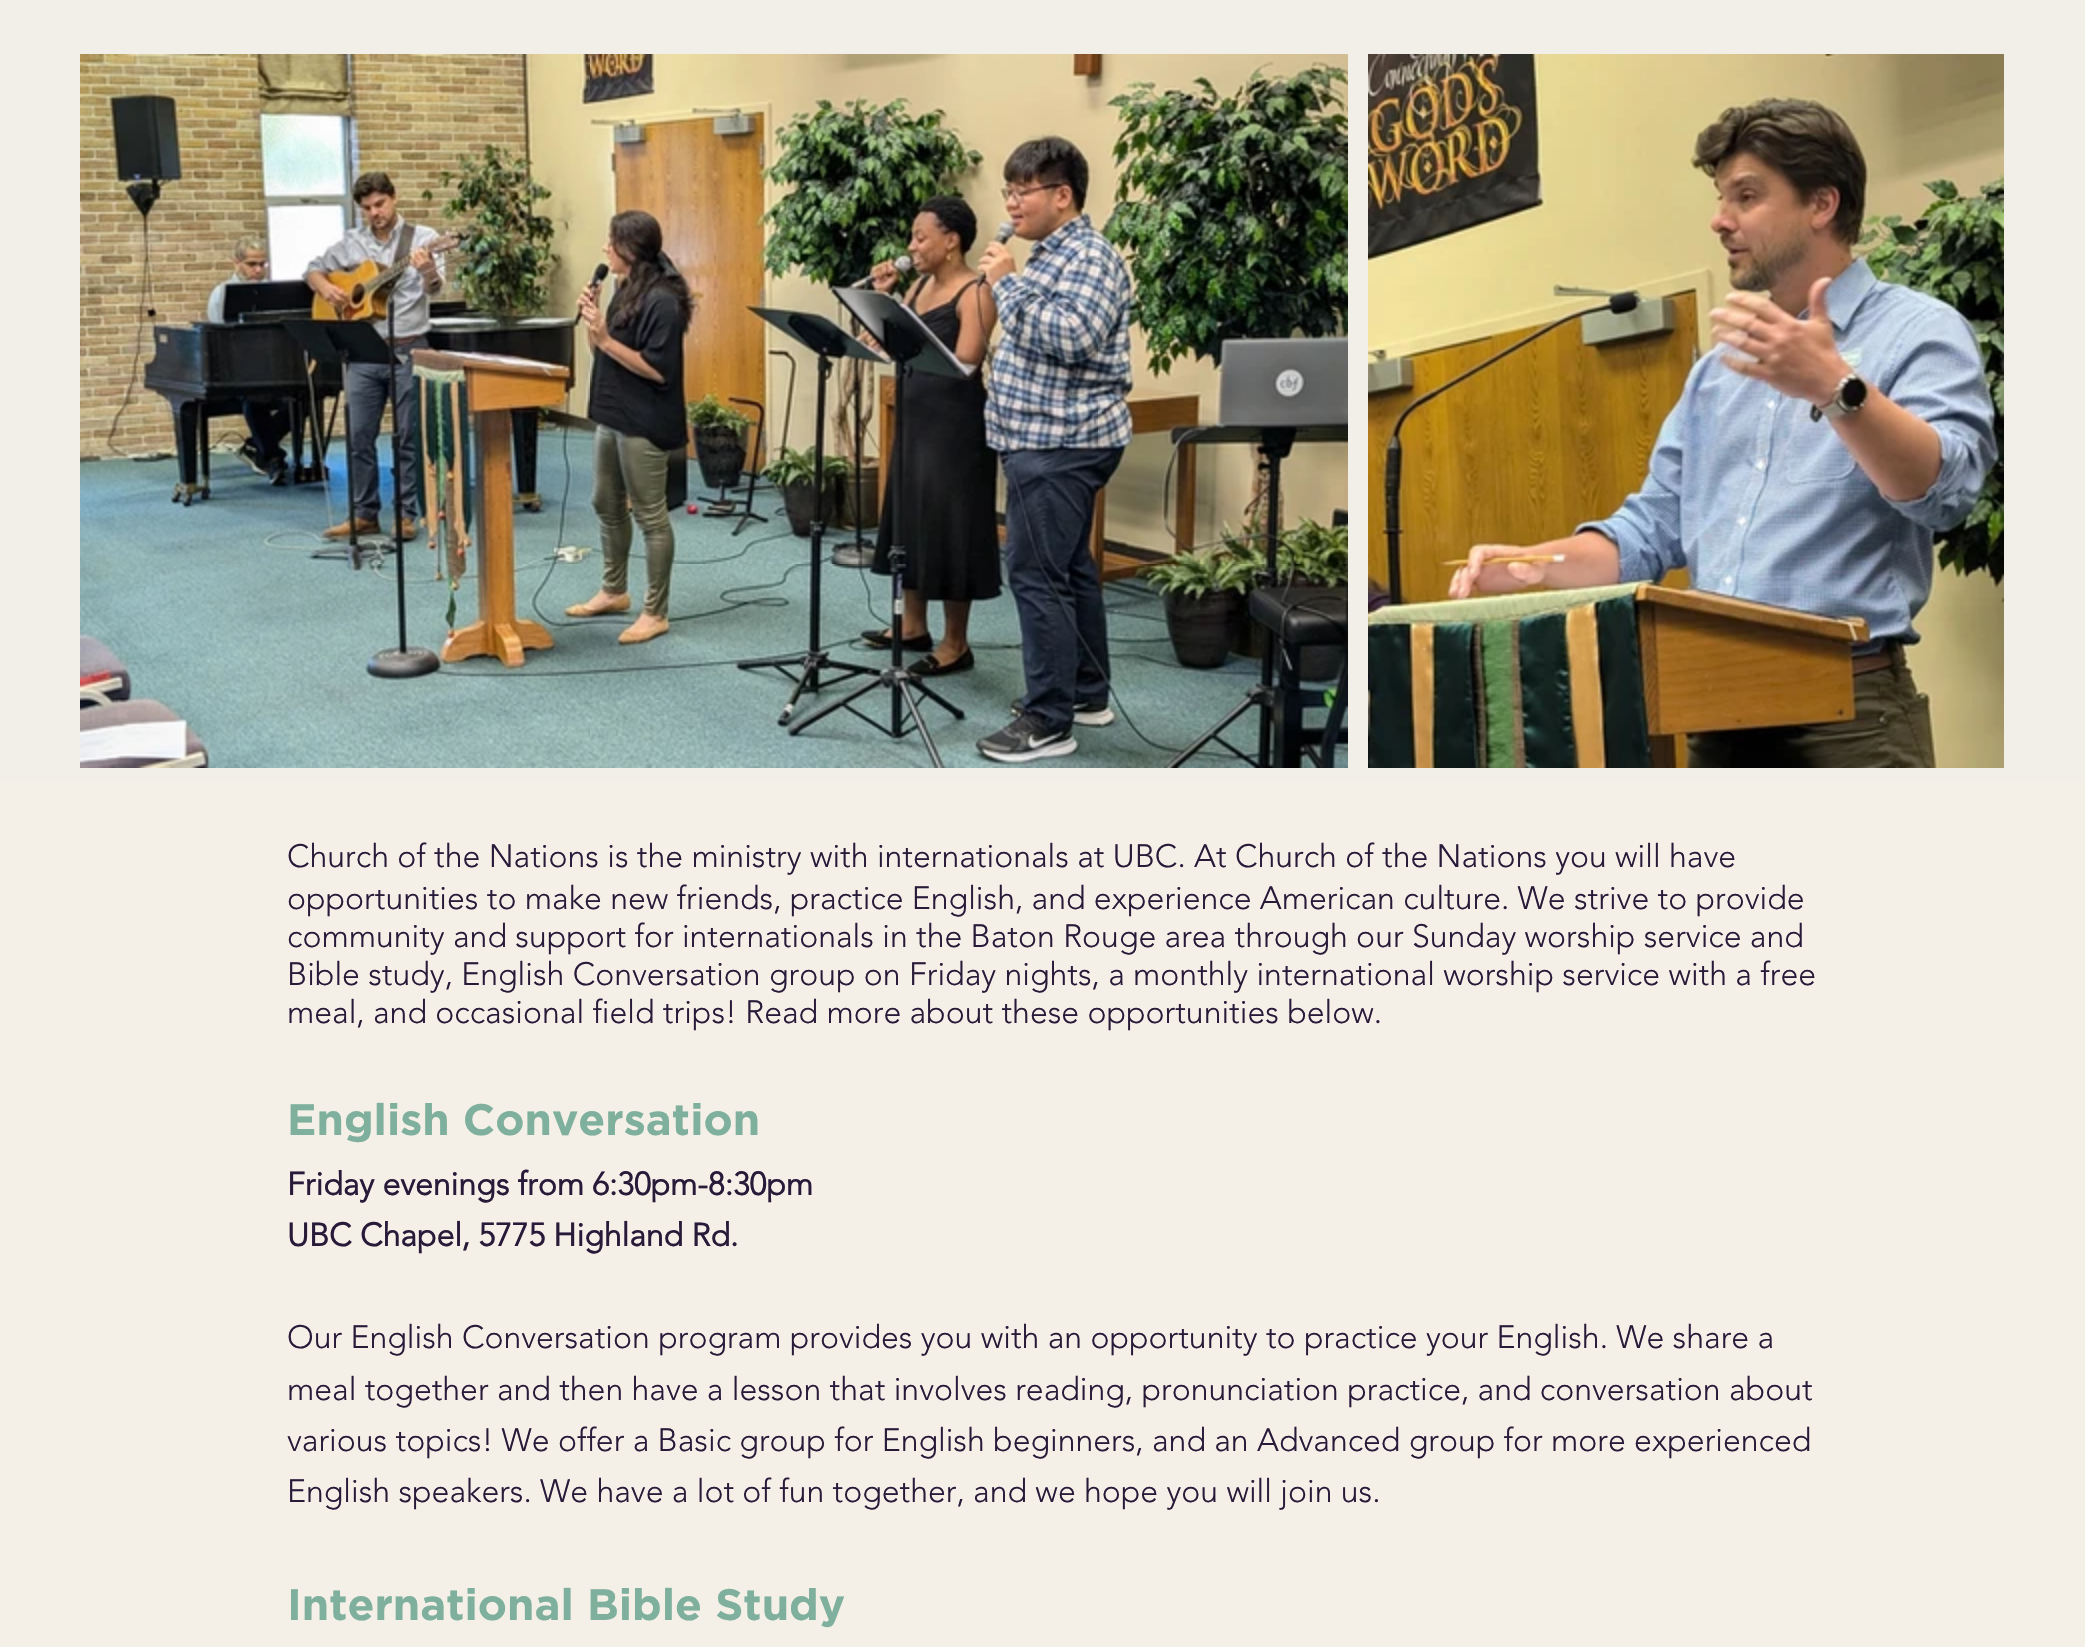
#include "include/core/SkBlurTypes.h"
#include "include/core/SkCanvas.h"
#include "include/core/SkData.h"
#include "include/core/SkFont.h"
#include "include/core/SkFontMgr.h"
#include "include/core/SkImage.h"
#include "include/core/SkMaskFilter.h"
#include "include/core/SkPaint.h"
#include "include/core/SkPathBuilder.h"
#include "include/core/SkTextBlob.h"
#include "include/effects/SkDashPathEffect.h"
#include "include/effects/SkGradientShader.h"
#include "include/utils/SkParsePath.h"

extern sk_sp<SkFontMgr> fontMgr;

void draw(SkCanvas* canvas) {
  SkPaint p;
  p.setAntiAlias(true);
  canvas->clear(SkColorSetRGB(241, 239, 231));
  canvas->drawImageRect(SkImages::DeferredFromEncodedData(SkData::MakeFromFileName("images/1.png")), SkRect::MakeLTRB(80, 54, 1348, 768), SkSamplingOptions());
  canvas->drawImageRect(SkImages::DeferredFromEncodedData(SkData::MakeFromFileName("images/2.png")), SkRect::MakeLTRB(1368, 54, 2004, 768), SkSamplingOptions());
  p.setColor(SkColorSetRGB(244, 240, 232));
  canvas->drawRect(SkRect::MakeLTRB(0, 782, 2085, 1647), p);
  SkFont font1(fontMgr->matchFamilyStyle("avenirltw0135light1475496", SkFontStyle(300, SkFontStyle::kNormal_Width, SkFontStyle::kUpright_Slant)), 32);
  font1.setSubpixel(true);
  p.setColor(SkColorSetRGB(40, 26, 57));
  canvas->drawString("Church of the Nations is the ministry with internationals at UBC. At Church of the Nations you will have", 287, 867, font1, p);
  canvas->drawString("opportunities to make new friends, practice English, and experience American culture. We strive to provide", 287, 909, font1, p);
  canvas->drawString("community and support for internationals in the Baton Rouge area through our Sunday worship service and", 287, 947, font1, p);
  canvas->drawString("Bible study, English Conversation group on Friday nights, a monthly international worship service with a free", 287, 985, font1, p);
  canvas->drawString("meal, and occasional field trips! Read more about these opportunities below.", 287, 1023, font1, p);
  SkFont font2(fontMgr->matchFamilyStyle("Gotham", SkFontStyle::Bold()), 44);
  font2.setSubpixel(true);
  p.setColor(SkColorSetRGB(127, 176, 157));
  canvas->drawString("English Conversation", 287, 1135, font2, p);
  SkFont font3(fontMgr->matchFamilyStyle("avenirltw0135light1475496", SkFontStyle::Bold()), 32);
  font3.setSubpixel(true);
  p.setColor(SkColorSetRGB(40, 26, 57));
  canvas->drawString("Friday evenings from 6:30pm-8:30pm", 287, 1195, font3, p);
  canvas->drawString("UBC Chapel, 5775 Highland Rd.", 287, 1246, font3, p);
  canvas->drawString("Our English Conversation program provides you with an opportunity to practice your English. We share a", 287, 1348, font1, p);
  canvas->drawString("meal together and then have a lesson that involves reading, pronunciation practice, and conversation about", 287, 1400, font1, p);
  canvas->drawString("various topics! We offer a Basic group for English beginners, and an Advanced group for more experienced", 287, 1451, font1, p);
  canvas->drawString("English speakers. We have a lot of fun together, and we hope you will join us.", 287, 1502, font1, p);
  p.setColor(SkColorSetRGB(127, 176, 157));
  canvas->drawString("International Bible Study", 287, 1620, font2, p);
}
